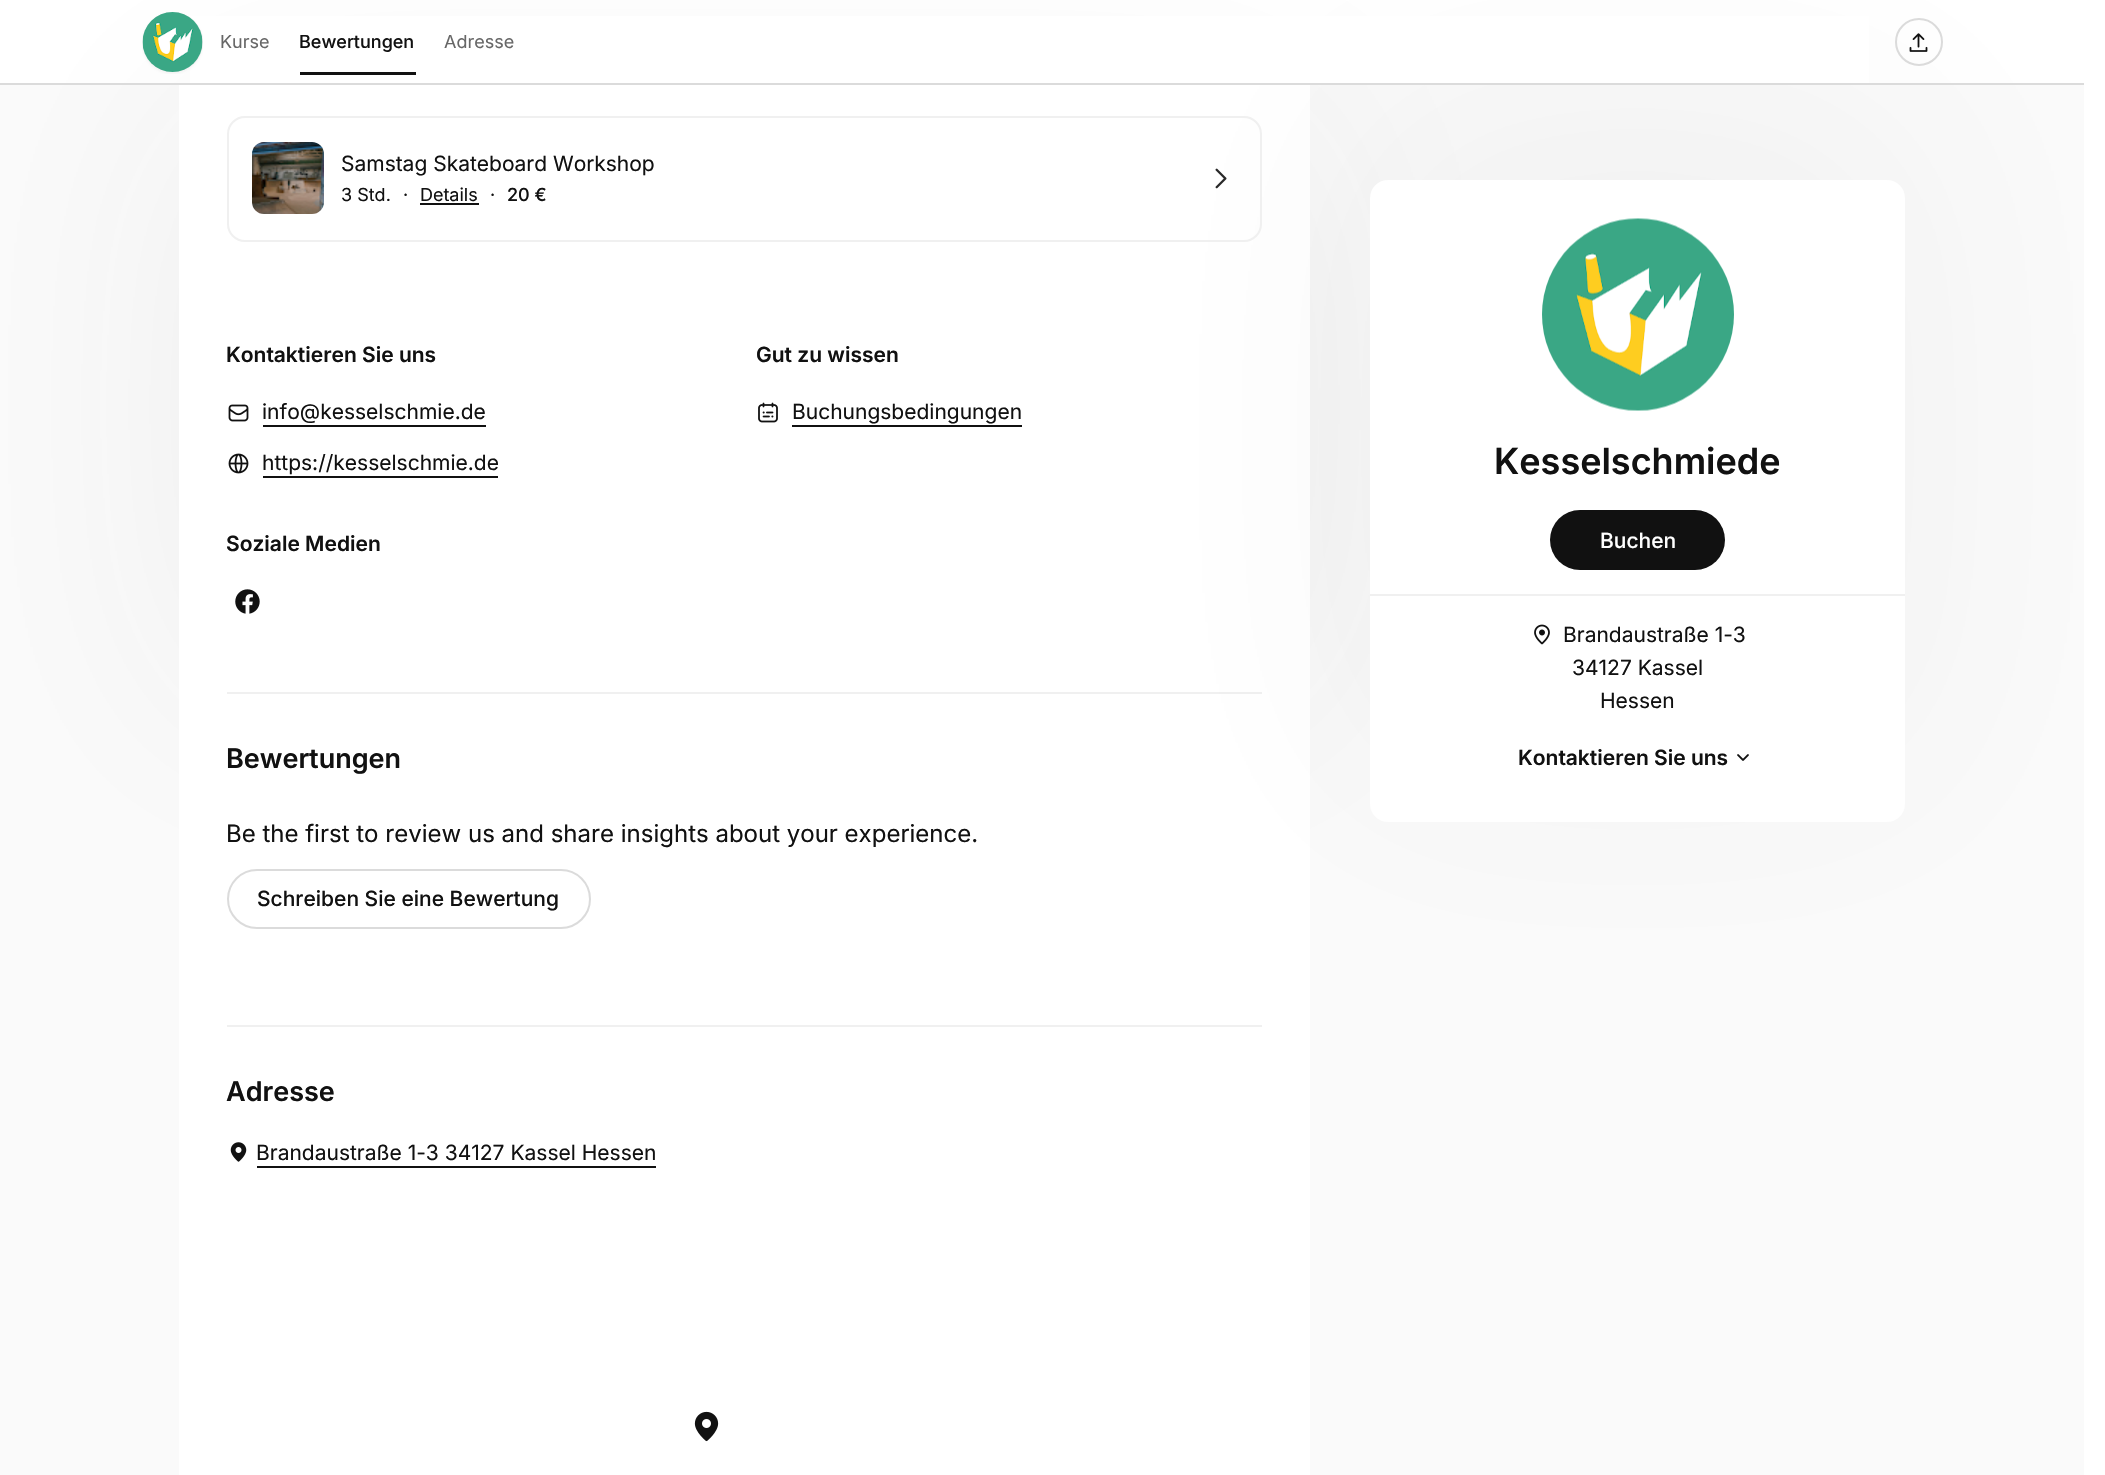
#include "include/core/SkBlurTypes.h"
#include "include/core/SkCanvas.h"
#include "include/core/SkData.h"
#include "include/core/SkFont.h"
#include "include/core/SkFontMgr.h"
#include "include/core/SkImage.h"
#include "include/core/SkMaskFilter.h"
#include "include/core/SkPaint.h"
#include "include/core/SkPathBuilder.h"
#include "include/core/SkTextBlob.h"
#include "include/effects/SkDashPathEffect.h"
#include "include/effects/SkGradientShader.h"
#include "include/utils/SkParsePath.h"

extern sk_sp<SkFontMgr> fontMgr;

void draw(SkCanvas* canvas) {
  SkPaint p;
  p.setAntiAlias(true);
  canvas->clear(SK_ColorWHITE);
  p.setColor(SkColorSetRGB(250, 250, 250));
  canvas->drawRect(SkRect::MakeLTRB(0, 85, 2084, 1475), p);
  p.setColor(SkColorSetARGB(15, 63, 68, 71));
  p.setMaskFilter(SkMaskFilter::MakeBlur(kNormal_SkBlurStyle, 120));
  canvas->drawRoundRect(SkRect::MakeLTRB(179, 107, 1310, 702), 18, 18, p);
  p.setMaskFilter(nullptr);
  p.setColor(SK_ColorWHITE);
  canvas->drawRect(SkRect::MakeLTRB(179, 85, 1310, 1475), p);
  p.setColor(SkColorSetRGB(17, 17, 17));
  canvas->drawRect(SkRect::MakeLTRB(792, 425, 1022, 427), p);
  p.setColor(SkColorSetRGB(240, 240, 240));
  canvas->drawRect(SkRect::MakeLTRB(227, 692, 1262, 694), p);
  canvas->drawRect(SkRect::MakeLTRB(227, 1025, 1262, 1027), p);
  p.setColor(SkColorSetARGB(15, 77, 82, 86));
  p.setMaskFilter(SkMaskFilter::MakeBlur(kNormal_SkBlurStyle, 120));
  canvas->drawRoundRect(SkRect::MakeLTRB(1370, 116, 1905, 758), 18, 18, p);
  p.setMaskFilter(nullptr);
  p.setColor(SK_ColorWHITE);
  canvas->drawRect(SkRect::MakeLTRB(190, 16, 1869, 83), p);
  p.setColor(SkColorSetRGB(219, 219, 219));
  canvas->drawRect(SkRect::MakeLTRB(0, 83, 2084, 85), p);
  p.setColor(SkColorSetRGB(244, 244, 244));
  canvas->drawCircle(173, 42, 30, p);
  canvas->drawImageRect(SkImages::DeferredFromEncodedData(SkData::MakeFromFileName("images/1.png")), SkRect::MakeLTRB(142, 12, 203, 74), SkSamplingOptions());
  p.setColor(SkColorSetRGB(17, 17, 17));
  canvas->drawRect(SkRect::MakeLTRB(300, 72, 416, 75), p);
  p.setStyle(SkPaint::kStroke_Style);
  p.setStrokeWidth(2);
  p.setColor(SkColorSetRGB(219, 219, 219));
  canvas->drawCircle(1919, 42, 23, p);
  canvas->drawImageRect(SkImages::DeferredFromEncodedData(SkData::MakeFromFileName("images/2.png")), SkRect::MakeLTRB(1909, 33, 1928, 52), SkSamplingOptions());
  p.setColor(SkColorSetRGB(240, 240, 240));
  canvas->drawRoundRect(SkRect::MakeLTRB(228, 117, 1261, 241), 17, 17, p);
  canvas->drawImageRect(SkImages::DeferredFromEncodedData(SkData::MakeFromFileName("images/3.png")), SkRect::MakeLTRB(252, 142, 324, 214), SkSamplingOptions());
  p.setStyle(SkPaint::kFill_Style);
  p.setColor(SkColorSetRGB(17, 17, 17));
  canvas->drawRect(SkRect::MakeLTRB(420, 203, 479, 205), p);
  canvas->drawImageRect(SkImages::DeferredFromEncodedData(SkData::MakeFromFileName("images/4.png")), SkRect::MakeLTRB(1215, 168, 1227, 189), SkSamplingOptions());
  canvas->drawImageRect(SkImages::DeferredFromEncodedData(SkData::MakeFromFileName("images/5.png")), SkRect::MakeLTRB(228, 404, 249, 422), SkSamplingOptions());
  canvas->drawRect(SkRect::MakeLTRB(263, 425, 486, 427), p);
  canvas->drawImageRect(SkImages::DeferredFromEncodedData(SkData::MakeFromFileName("images/6.png")), SkRect::MakeLTRB(228, 453, 249, 474), SkSamplingOptions());
  canvas->drawRect(SkRect::MakeLTRB(263, 476, 498, 478), p);
  canvas->drawImageRect(SkImages::DeferredFromEncodedData(SkData::MakeFromFileName("images/7.png")), SkRect::MakeLTRB(758, 402, 778, 423), SkSamplingOptions());
  canvas->drawImageRect(SkImages::DeferredFromEncodedData(SkData::MakeFromFileName("images/8.png")), SkRect::MakeLTRB(235, 589, 260, 614), SkSamplingOptions());
  p.setStyle(SkPaint::kStroke_Style);
  p.setColor(SkColorSetRGB(219, 219, 219));
  canvas->drawRoundRect(SkRect::MakeLTRB(228, 870, 590, 928), 29, 29, p);
  canvas->drawImageRect(SkImages::DeferredFromEncodedData(SkData::MakeFromFileName("images/9.png")), SkRect::MakeLTRB(230, 1142, 247, 1162), SkSamplingOptions());
  p.setStyle(SkPaint::kFill_Style);
  p.setColor(SkColorSetRGB(17, 17, 17));
  canvas->drawRect(SkRect::MakeLTRB(257, 1166, 656, 1168), p);
  canvas->drawImageRect(SkImages::DeferredFromEncodedData(SkData::MakeFromFileName("images/10.png")), SkRect::MakeLTRB(694, 1411, 719, 1442), SkSamplingOptions());
  p.setColor(SK_ColorWHITE);
  canvas->drawRoundRect(SkRect::MakeLTRB(1370, 180, 1905, 822), 18, 18, p);
  canvas->drawImageRect(SkImages::DeferredFromEncodedData(SkData::MakeFromFileName("images/11.png")), SkRect::MakeLTRB(1542, 218, 1734, 411), SkSamplingOptions());
  p.setColor(SkColorSetRGB(17, 17, 17));
  canvas->drawRoundRect(SkRect::MakeLTRB(1550, 510, 1725, 570), 30, 30, p);
  p.setColor(SkColorSetRGB(240, 240, 240));
  canvas->drawRect(SkRect::MakeLTRB(1370, 594, 1905, 596), p);
  canvas->drawImageRect(SkImages::DeferredFromEncodedData(SkData::MakeFromFileName("images/12.png")), SkRect::MakeLTRB(1534, 624, 1550, 645), SkSamplingOptions());
  canvas->drawImageRect(SkImages::DeferredFromEncodedData(SkData::MakeFromFileName("images/13.png")), SkRect::MakeLTRB(1737, 754, 1749, 761), SkSamplingOptions());
  SkFont font1(fontMgr->matchFamilyStyle("Inter", SkFontStyle::Normal()), 18);
  font1.setSubpixel(true);
  p.setColor(SkColorSetRGB(103, 103, 103));
  canvas->drawString("Kurse", 220, 48, font1, p);
  SkFont font2(fontMgr->matchFamilyStyle("Inter", SkFontStyle(500, SkFontStyle::kNormal_Width, SkFontStyle::kUpright_Slant)), 18);
  font2.setSubpixel(true);
  p.setColor(SkColorSetRGB(17, 17, 17));
  canvas->drawString("Bewertungen", 299, 48, font2, p);
  p.setColor(SkColorSetRGB(103, 103, 103));
  canvas->drawString("Adresse", 444, 48, font1, p);
  SkFont font3(fontMgr->matchFamilyStyle("Inter", SkFontStyle::Normal()), 21);
  font3.setSubpixel(true);
  p.setColor(SkColorSetRGB(17, 17, 17));
  canvas->drawString("Samstag Skateboard Workshop", 341, 171, font3, p);
  canvas->drawString("3 Std.", 341, 201, font1, p);
  canvas->drawString("·", 403, 201, font1, p);
  canvas->drawString("Details", 420, 201, font1, p);
  canvas->drawString("·", 490, 201, font1, p);
  canvas->drawString("20 €", 507, 201, font2, p);
  SkFont font4(fontMgr->matchFamilyStyle("Inter", SkFontStyle(600, SkFontStyle::kNormal_Width, SkFontStyle::kUpright_Slant)), 21);
  font4.setSubpixel(true);
  canvas->drawString("Kontaktieren Sie uns", 226, 362, font4, p);
  canvas->drawString("info@kesselschmie.de", 262, 419, font3, p);
  canvas->drawString("https://kesselschmie.de", 262, 470, font3, p);
  canvas->drawString("Gut zu wissen", 756, 362, font4, p);
  canvas->drawString("Buchungsbedingungen", 792, 419, font3, p);
  canvas->drawString("Soziale Medien", 226, 551, font4, p);
  SkFont font5(fontMgr->matchFamilyStyle("Inter", SkFontStyle(600, SkFontStyle::kNormal_Width, SkFontStyle::kUpright_Slant)), 27);
  font5.setSubpixel(true);
  canvas->drawString("Bewertungen", 226, 768, font5, p);
  SkFont font6(fontMgr->matchFamilyStyle("Inter", SkFontStyle::Normal()), 24);
  font6.setSubpixel(true);
  canvas->drawString("Be the first to review us and share insights about your experience.", 226, 842, font6, p);
  SkFont font7(fontMgr->matchFamilyStyle("Inter", SkFontStyle(500, SkFontStyle::kNormal_Width, SkFontStyle::kUpright_Slant)), 21);
  font7.setSubpixel(true);
  canvas->drawString("Schreiben Sie eine Bewertung", 257, 906, font7, p);
  canvas->drawString("Adresse", 226, 1101, font5, p);
  canvas->drawString("Brandaustraße 1-3 34127 Kassel Hessen", 256, 1160, font3, p);
  SkFont font8(fontMgr->matchFamilyStyle("Inter", SkFontStyle(600, SkFontStyle::kNormal_Width, SkFontStyle::kUpright_Slant)), 36);
  font8.setSubpixel(true);
  canvas->drawString("Kesselschmiede", 1494, 474, font8, p);
  p.setColor(SK_ColorWHITE);
  canvas->drawString("Buchen", 1600, 548, font7, p);
  p.setColor(SkColorSetRGB(17, 17, 17));
  canvas->drawString("Brandaustraße 1-3", 1563, 642, font3, p);
  canvas->drawString("34127 Kassel", 1572, 675, font3, p);
  canvas->drawString("Hessen", 1600, 708, font3, p);
  canvas->drawString("Kontaktieren Sie uns", 1518, 765, font4, p);
}
